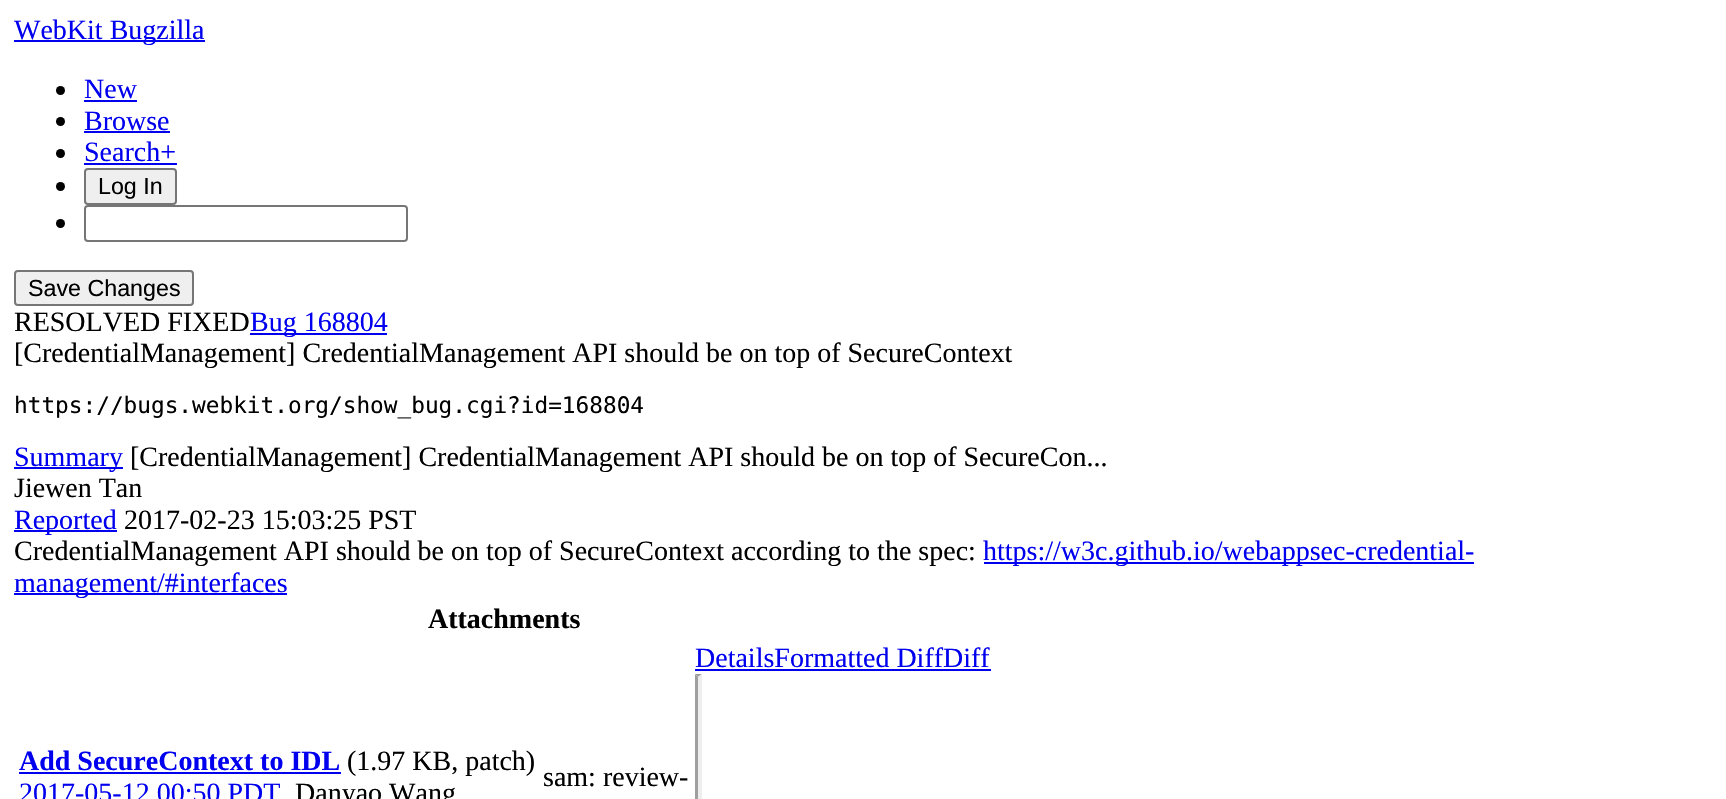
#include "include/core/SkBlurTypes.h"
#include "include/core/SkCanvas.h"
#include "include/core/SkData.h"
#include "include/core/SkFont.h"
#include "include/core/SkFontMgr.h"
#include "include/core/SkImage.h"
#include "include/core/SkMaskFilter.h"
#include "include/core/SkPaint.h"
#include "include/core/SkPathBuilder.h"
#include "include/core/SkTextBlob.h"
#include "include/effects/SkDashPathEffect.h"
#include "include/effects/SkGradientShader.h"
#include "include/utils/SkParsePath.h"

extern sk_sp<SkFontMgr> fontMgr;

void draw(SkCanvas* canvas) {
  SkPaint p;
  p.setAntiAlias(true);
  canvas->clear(SK_ColorWHITE);
  p.setColor(SkColorSetRGB(0, 0, 238));
  canvas->drawRect(SkRect::MakeLTRB(14, 40, 205, 42), p);
  p.setColor(SK_ColorBLACK);
  canvas->drawCircle(60.5f, 90.5f, 4.5f, p);
  p.setColor(SkColorSetRGB(0, 0, 238));
  canvas->drawRect(SkRect::MakeLTRB(84, 100, 137, 102), p);
  p.setColor(SK_ColorBLACK);
  canvas->drawCircle(60.5f, 121.5f, 4.5f, p);
  p.setColor(SkColorSetRGB(0, 0, 238));
  canvas->drawRect(SkRect::MakeLTRB(84, 131, 170, 133), p);
  p.setColor(SK_ColorBLACK);
  canvas->drawCircle(60.5f, 153.5f, 4.5f, p);
  p.setColor(SkColorSetRGB(0, 0, 238));
  canvas->drawRect(SkRect::MakeLTRB(84, 163, 177, 165), p);
  p.setColor(SK_ColorBLACK);
  canvas->drawCircle(60.5f, 186.5f, 4.5f, p);
  p.setColor(SkColorSetRGB(239, 239, 239));
  canvas->drawRoundRect(SkRect::MakeLTRB(85, 169, 176, 204), 3, 3, p);
  p.setStyle(SkPaint::kStroke_Style);
  p.setStrokeWidth(2);
  p.setColor(SkColorSetRGB(118, 118, 118));
  canvas->drawRoundRect(SkRect::MakeLTRB(85, 169, 176, 204), 3, 3, p);
  p.setStyle(SkPaint::kFill_Style);
  p.setColor(SK_ColorBLACK);
  canvas->drawCircle(60.5f, 223.5f, 4.5f, p);
  p.setStyle(SkPaint::kStroke_Style);
  p.setColor(SkColorSetRGB(118, 118, 118));
  canvas->drawRoundRect(SkRect::MakeLTRB(85, 206, 407, 241), 3, 3, p);
  p.setStyle(SkPaint::kFill_Style);
  p.setColor(SkColorSetRGB(239, 239, 239));
  canvas->drawRoundRect(SkRect::MakeLTRB(15, 271, 193, 305), 3, 3, p);
  p.setStyle(SkPaint::kStroke_Style);
  p.setColor(SkColorSetRGB(118, 118, 118));
  canvas->drawRoundRect(SkRect::MakeLTRB(15, 271, 193, 305), 3, 3, p);
  p.setStyle(SkPaint::kFill_Style);
  p.setColor(SkColorSetRGB(0, 0, 238));
  canvas->drawRect(SkRect::MakeLTRB(250, 333, 387, 335), p);
  canvas->drawRect(SkRect::MakeLTRB(14, 467, 123, 469), p);
  canvas->drawRect(SkRect::MakeLTRB(14, 530, 117, 532), p);
  canvas->drawRect(SkRect::MakeLTRB(984, 562, 1474, 564), p);
  canvas->drawRect(SkRect::MakeLTRB(14, 593, 287, 595), p);
  canvas->drawRect(SkRect::MakeLTRB(695, 669, 991, 671), p);
  p.setColor(SkColorSetRGB(159, 159, 159));
  canvas->drawPath(SkPathBuilder().moveTo(695, 674).lineTo(702, 674).lineTo(698, 677).close().detach(), p);
  canvas->drawPath(SkPathBuilder().moveTo(695, 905).lineTo(695, 674).lineTo(698, 677).lineTo(698, 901).close().detach(), p);
  p.setColor(SkColorSetRGB(238, 238, 238));
  canvas->drawPath(SkPathBuilder().moveTo(702, 674).lineTo(702, 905).lineTo(698, 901).lineTo(698, 677).close().detach(), p);
  p.setColor(SkColorSetRGB(0, 0, 238));
  canvas->drawRect(SkRect::MakeLTRB(19, 772, 341, 774), p);
  SkFont font1(fontMgr->matchFamilyStyle("Liberation Serif", SkFontStyle::Normal()), 28);
  font1.setSubpixel(true);
  canvas->drawString("WebKit Bugzilla", 14, 39, font1, p);
  canvas->drawString("New", 84, 98, font1, p);
  canvas->drawString("Browse", 84, 130, font1, p);
  canvas->drawString("Search+", 84, 161, font1, p);
  SkFont font2(fontMgr->matchFamilyStyle("Liberation Sans", SkFontStyle::Normal()), 23.25f);
  font2.setSubpixel(true);
  p.setColor(SK_ColorBLACK);
  canvas->drawString("Log In", 98, 194, font2, p);
  canvas->drawString("Save Changes", 28, 296, font2, p);
  canvas->drawString("RESOLVED FIXED", 14, 331, font1, p);
  p.setColor(SkColorSetRGB(0, 0, 238));
  canvas->drawString("Bug 168804", 250, 331, font1, p);
  p.setColor(SK_ColorBLACK);
  canvas->drawString("[CredentialManagement] CredentialManagement API should be on top of SecureContext", 14, 362, font1, p);
  SkFont font3(fontMgr->matchFamilyStyle("DejaVu Sans Mono", SkFontStyle::Normal()), 22.75f);
  font3.setSubpixel(true);
  canvas->drawString("https://bugs.webkit.org/show_bug.cgi?id=168804", 14, 413, font3, p);
  p.setColor(SkColorSetRGB(0, 0, 238));
  canvas->drawString("Summary", 14, 466, font1, p);
  p.setColor(SK_ColorBLACK);
  canvas->drawString("[CredentialManagement] CredentialManagement API should be on top of SecureCon...", 130, 466, font1, p);
  canvas->drawString("Jiewen Tan", 14, 497, font1, p);
  p.setColor(SkColorSetRGB(0, 0, 238));
  canvas->drawString("Reported", 14, 529, font1, p);
  p.setColor(SK_ColorBLACK);
  canvas->drawString("2017-02-23 15:03:25 PST", 124, 529, font1, p);
  canvas->drawString("CredentialManagement API should be on top of SecureContext according to the spec:", 14, 560, font1, p);
  p.setColor(SkColorSetRGB(0, 0, 238));
  canvas->drawString("https://w3c.github.io/webappsec-credential-", 983, 560, font1, p);
  canvas->drawString("management/#interfaces", 14, 592, font1, p);
  SkFont font4(fontMgr->matchFamilyStyle("Liberation Serif", SkFontStyle::Bold()), 28);
  font4.setSubpixel(true);
  p.setColor(SK_ColorBLACK);
  canvas->drawString("Attachments", 428, 628, font4, p);
  p.setColor(SkColorSetRGB(0, 0, 238));
  canvas->drawString("DetailsFormatted DiffDiff", 695, 667, font1, p);
  canvas->drawString("Add SecureContext to IDL", 19, 770, font4, p);
  p.setColor(SK_ColorBLACK);
  canvas->drawString("(1.97 KB, patch)", 347, 770, font1, p);
  p.setColor(SkColorSetRGB(0, 0, 238));
  canvas->drawString("2017-05-12 00:50 PDT", 19, 802, font1, p);
  p.setColor(SK_ColorBLACK);
  canvas->drawString("Danyao Wang", 295, 802, font1, p);
  canvas->drawString("sam: review-", 543, 786, font1, p);
}
